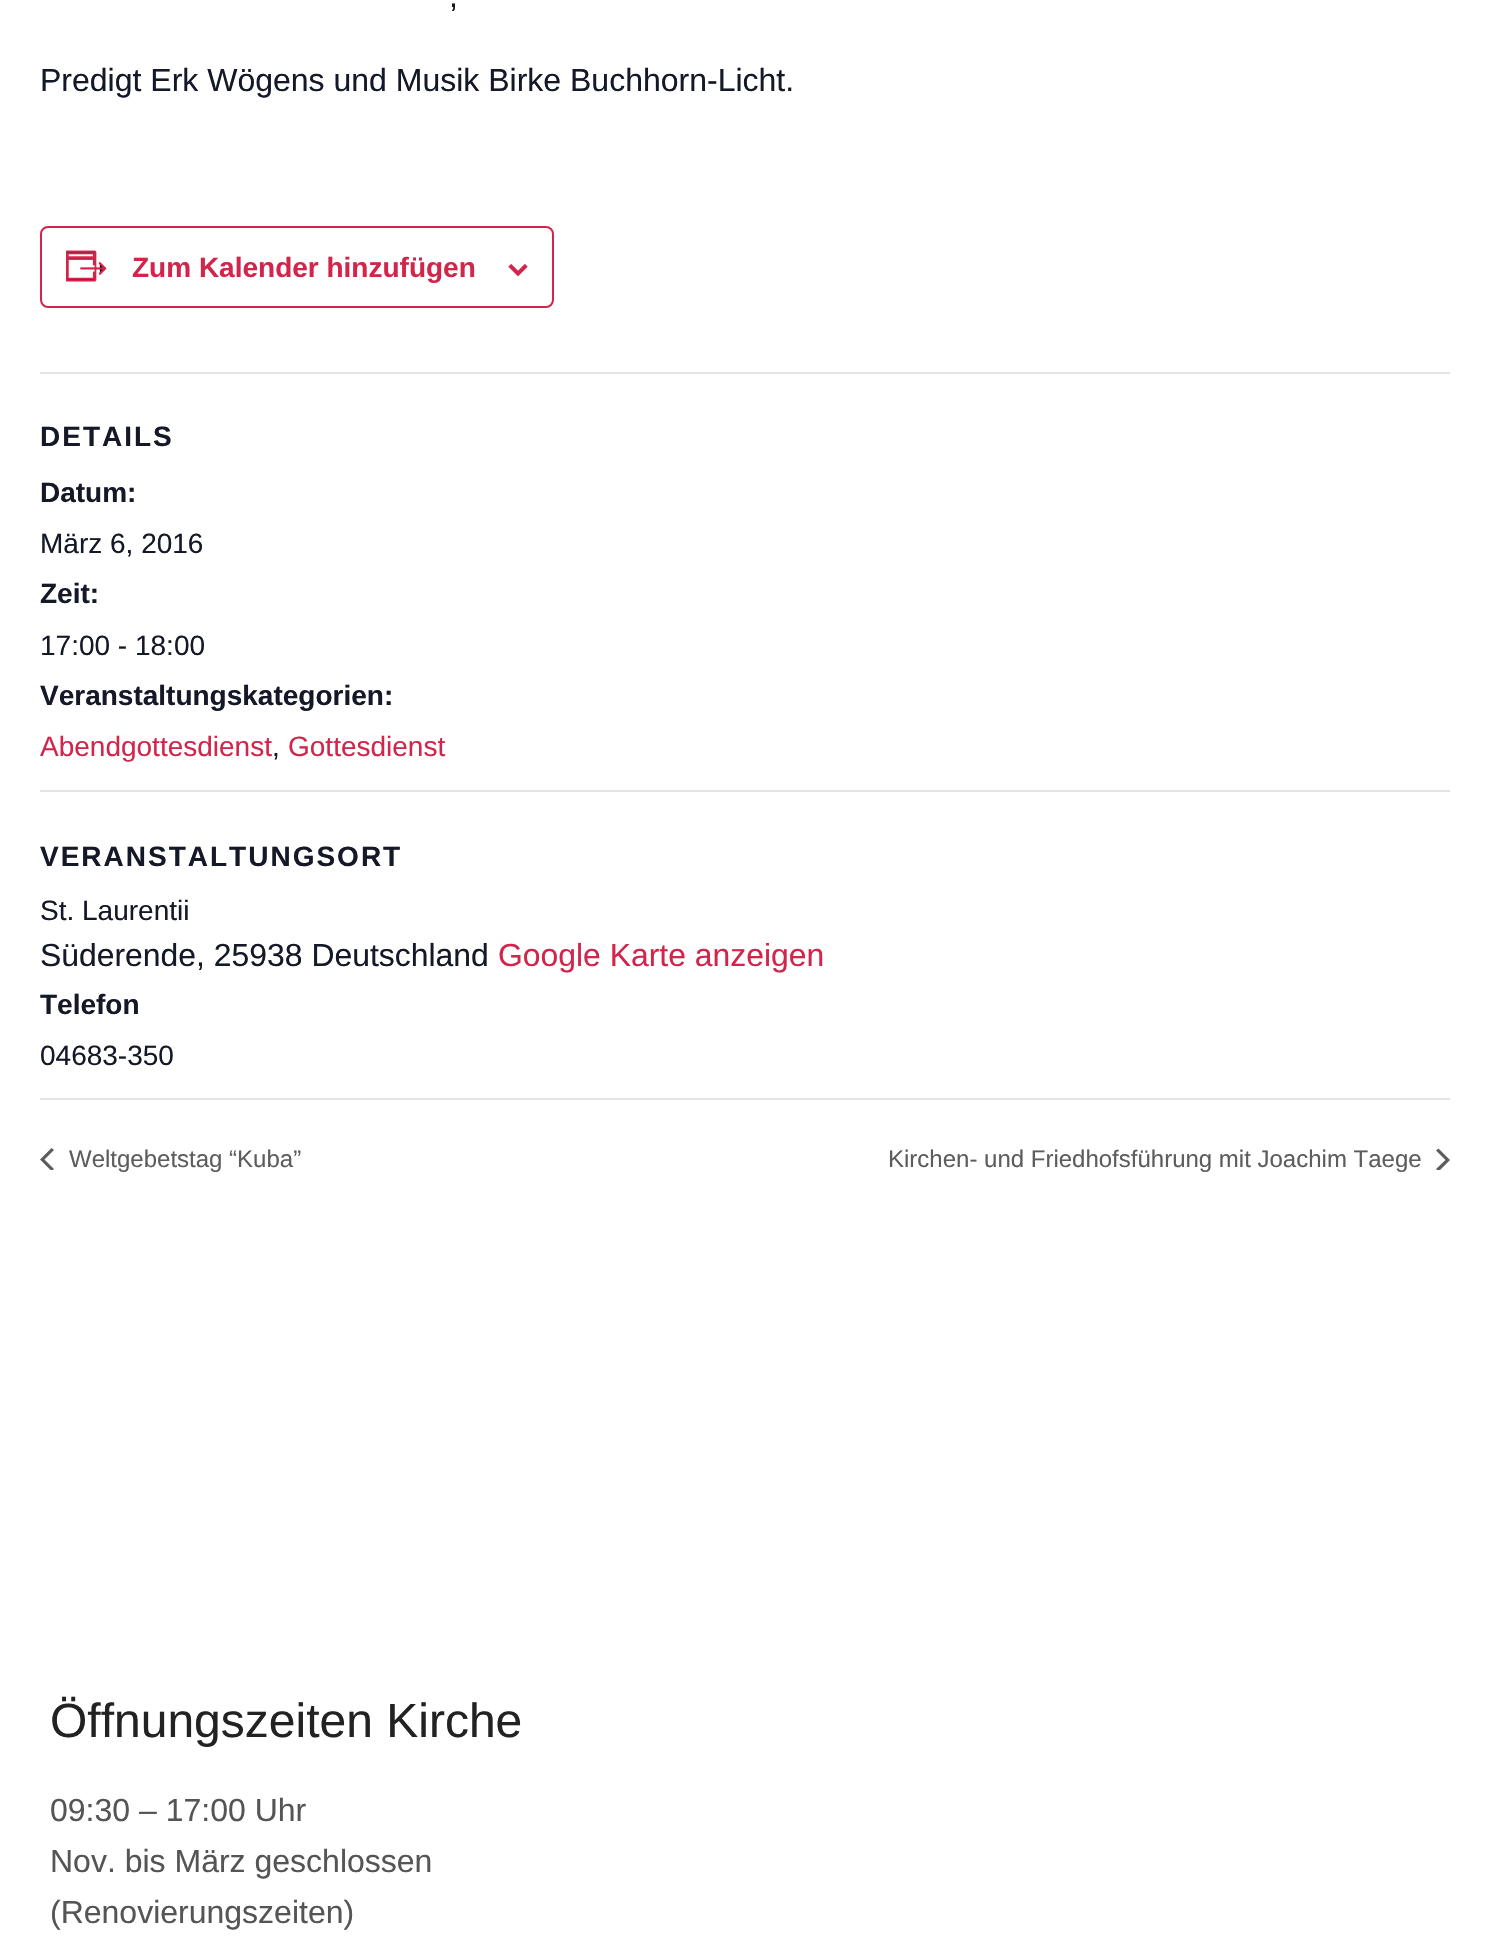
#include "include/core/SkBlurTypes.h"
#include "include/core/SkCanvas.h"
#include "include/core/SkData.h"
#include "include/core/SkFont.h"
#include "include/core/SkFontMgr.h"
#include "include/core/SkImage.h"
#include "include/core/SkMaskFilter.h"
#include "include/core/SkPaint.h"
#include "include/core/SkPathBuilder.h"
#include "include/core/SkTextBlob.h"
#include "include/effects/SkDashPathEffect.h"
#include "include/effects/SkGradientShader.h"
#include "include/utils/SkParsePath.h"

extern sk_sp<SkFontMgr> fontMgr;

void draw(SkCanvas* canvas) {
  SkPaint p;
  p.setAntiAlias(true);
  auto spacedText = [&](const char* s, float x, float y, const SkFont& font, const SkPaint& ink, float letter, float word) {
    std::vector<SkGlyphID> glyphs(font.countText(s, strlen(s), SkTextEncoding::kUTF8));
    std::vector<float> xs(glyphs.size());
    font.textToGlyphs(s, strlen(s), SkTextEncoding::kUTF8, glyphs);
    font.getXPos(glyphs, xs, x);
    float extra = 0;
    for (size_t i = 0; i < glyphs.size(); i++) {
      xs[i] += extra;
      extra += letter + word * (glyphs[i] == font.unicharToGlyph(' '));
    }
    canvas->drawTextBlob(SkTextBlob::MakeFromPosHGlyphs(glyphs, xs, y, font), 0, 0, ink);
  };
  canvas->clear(SK_ColorWHITE);
  p.setStyle(SkPaint::kStroke_Style);
  p.setStrokeWidth(2);
  p.setColor(SkColorSetRGB(209, 37, 76));
  canvas->drawRoundRect(SkRect::MakeLTRB(41, 227, 553, 307), 7, 7, p);
  canvas->drawImageRect(SkImages::DeferredFromEncodedData(SkData::MakeFromFileName("images/1.png")), SkRect::MakeLTRB(66, 250, 107, 282), SkSamplingOptions());
  canvas->drawImageRect(SkImages::DeferredFromEncodedData(SkData::MakeFromFileName("images/2.png")), SkRect::MakeLTRB(508, 264, 528, 276), SkSamplingOptions());
  p.setStyle(SkPaint::kFill_Style);
  p.setColor(SkColorSetRGB(228, 228, 228));
  canvas->drawRect(SkRect::MakeLTRB(40, 372, 1450, 374), p);
  canvas->drawRect(SkRect::MakeLTRB(40, 790, 1450, 792), p);
  canvas->drawRect(SkRect::MakeLTRB(40, 1098, 1450, 1100), p);
  canvas->save();
  canvas->clipRect(SkRect::MakeLTRB(40, 1148, 54, 1170));
  p.setColor(SkColorSetRGB(93, 93, 93));
  canvas->drawPath(SkPathBuilder().moveTo(54, 1169).lineTo(51.5f, 1171).lineTo(40, 1159.5f).lineTo(51.5f, 1148).lineTo(54, 1150).lineTo(44.5f, 1159.5f).close().detach(), p);
  canvas->restore();
  canvas->save();
  canvas->clipRect(SkRect::MakeLTRB(1436, 1148, 1450, 1170));
  canvas->drawPath(SkPathBuilder().moveTo(1436, 1150.5f).lineTo(1438.5f, 1148.5f).lineTo(1450, 1160).lineTo(1438.5f, 1171.5f).lineTo(1436, 1169).lineTo(1445.5f, 1160).close().detach(), p);
  canvas->restore();
  SkFont font1(fontMgr->matchFamilyStyle("Liberation Sans", SkFontStyle::Normal()), 32);
  font1.setSubpixel(true);
  p.setColor(SkColorSetRGB(20, 24, 39));
  canvas->drawString(",", 449, 7, font1, p);
  canvas->drawString("Predigt Erk Wögens und Musik Birke Buchhorn-Licht.", 40, 91, font1, p);
  SkFont font2(fontMgr->matchFamilyStyle("Liberation Sans", SkFontStyle::Bold()), 28);
  font2.setSubpixel(true);
  p.setColor(SkColorSetRGB(209, 37, 76));
  canvas->drawString("Zum Kalender hinzufügen", 132, 277, font2, p);
  p.setColor(SkColorSetRGB(20, 24, 39));
  spacedText("DETAILS", 40, 446, font2, p, 2, 0);
  canvas->drawString("Datum:", 40, 502, font2, p);
  SkFont font3(fontMgr->matchFamilyStyle("Liberation Sans", SkFontStyle::Normal()), 28);
  font3.setSubpixel(true);
  canvas->drawString("März 6, 2016", 40, 553, font3, p);
  canvas->drawString("Zeit:", 40, 603, font2, p);
  canvas->drawString("17:00 - 18:00", 40, 655, font3, p);
  canvas->drawString("Veranstaltungskategorien:", 40, 705, font2, p);
  p.setColor(SkColorSetRGB(209, 37, 76));
  canvas->drawString("Abendgottesdienst", 40, 756, font3, p);
  p.setColor(SkColorSetRGB(20, 24, 39));
  canvas->drawString(",", 272, 756, font3, p);
  p.setColor(SkColorSetRGB(209, 37, 76));
  canvas->drawString("Gottesdienst", 288, 756, font3, p);
  p.setColor(SkColorSetRGB(20, 24, 39));
  spacedText("VERANSTALTUNGSORT", 40, 866, font2, p, 2, 0);
  canvas->drawString("St. Laurentii", 40, 920, font3, p);
  SkFont font4(fontMgr->matchFamilyStyle("Liberation Sans", SkFontStyle::Normal()), 31.9f);
  font4.setSubpixel(true);
  canvas->drawString("Süderende, 25938 Deutschland", 40, 966, font4, p);
  p.setColor(SkColorSetRGB(209, 37, 76));
  canvas->drawString("Google Karte anzeigen", 498, 966, font4, p);
  p.setColor(SkColorSetRGB(20, 24, 39));
  canvas->drawString("Telefon", 40, 1014, font2, p);
  canvas->drawString("04683-350", 40, 1065, font3, p);
  SkFont font5(fontMgr->matchFamilyStyle("Liberation Sans", SkFontStyle::Normal()), 24);
  font5.setSubpixel(true);
  p.setColor(SkColorSetRGB(93, 93, 93));
  canvas->drawString("Weltgebetstag “Kuba”", 69, 1167, font5, p);
  canvas->drawString("Kirchen- und Friedhofsführung mit Joachim Taege", 888, 1167, font5, p);
  SkFont font6(fontMgr->matchFamilyStyle("Liberation Sans", SkFontStyle::Normal()), 48);
  font6.setSubpixel(true);
  p.setColor(SkColorSetRGB(34, 34, 34));
  canvas->drawString("Öffnungszeiten Kirche", 50, 1737, font6, p);
  p.setColor(SkColorSetRGB(85, 85, 85));
  canvas->drawString("09:30 – 17:00 Uhr", 50, 1821, font1, p);
  canvas->drawString("Nov. bis März geschlossen", 50, 1872, font1, p);
  canvas->drawString("(Renovierungszeiten)", 50, 1923, font1, p);
}
